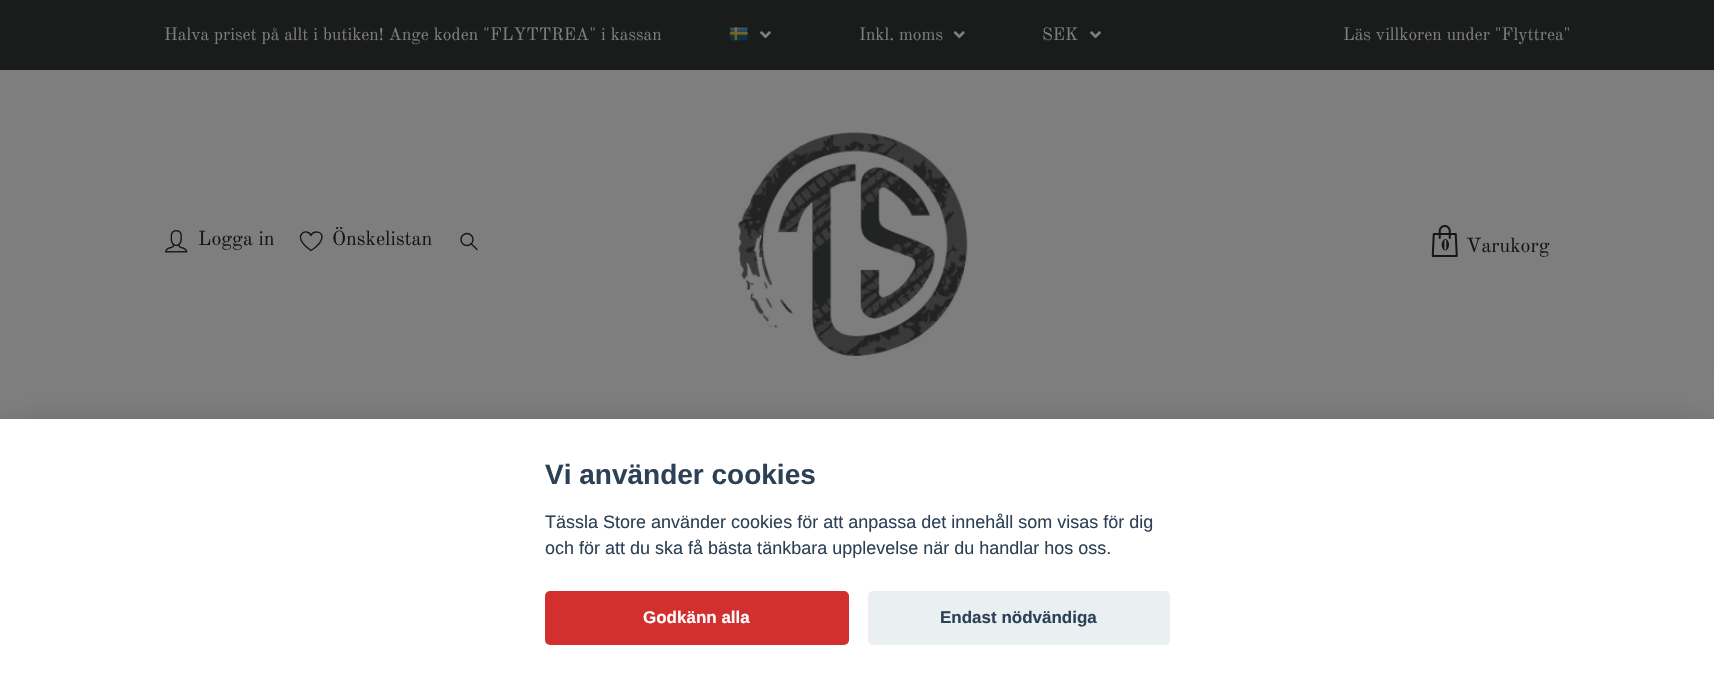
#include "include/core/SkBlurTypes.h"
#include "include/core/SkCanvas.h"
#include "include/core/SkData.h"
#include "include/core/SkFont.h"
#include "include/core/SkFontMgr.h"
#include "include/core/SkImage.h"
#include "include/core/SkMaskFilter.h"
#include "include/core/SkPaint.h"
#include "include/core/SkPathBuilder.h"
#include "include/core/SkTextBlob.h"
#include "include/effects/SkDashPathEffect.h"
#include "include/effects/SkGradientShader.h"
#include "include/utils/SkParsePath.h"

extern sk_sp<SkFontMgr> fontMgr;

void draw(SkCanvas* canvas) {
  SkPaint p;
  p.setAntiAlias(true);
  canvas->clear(SkColorSetRGB(126, 126, 127));
  p.setColor(SkColorSetRGB(26, 27, 27));
  canvas->drawRect(SkRect::MakeLTRB(0, 0, 1714, 70), p);
  canvas->drawImageRect(SkImages::DeferredFromEncodedData(SkData::MakeFromFileName("images/1.png")), SkRect::MakeLTRB(729, 27, 748, 41), SkSamplingOptions());
  canvas->drawImageRect(SkImages::DeferredFromEncodedData(SkData::MakeFromFileName("images/2.png")), SkRect::MakeLTRB(760, 31, 771, 39), SkSamplingOptions());
  canvas->drawImageRect(SkImages::DeferredFromEncodedData(SkData::MakeFromFileName("images/3.png")), SkRect::MakeLTRB(953, 31, 965, 39), SkSamplingOptions());
  canvas->drawImageRect(SkImages::DeferredFromEncodedData(SkData::MakeFromFileName("images/2.png")), SkRect::MakeLTRB(1090, 31, 1101, 39), SkSamplingOptions());
  canvas->drawImageRect(SkImages::DeferredFromEncodedData(SkData::MakeFromFileName("images/4.png")), SkRect::MakeLTRB(165, 230, 188, 253), SkSamplingOptions());
  p.setStyle(SkPaint::kStroke_Style);
  p.setStrokeWidth(1.4f);
  p.setStrokeCap(SkPaint::kRound_Cap);
  p.setStrokeJoin(SkPaint::kRound_Join);
  p.setColor(SkColorSetRGB(20, 21, 21));
  canvas->drawPath(SkPathBuilder().moveTo(316.5f, 232).cubicTo(314, 232, 312, 233, 311, 235.5f).cubicTo(308, 226.5f, 289, 235.5f, 311, 250.5f).cubicTo(318, 246, 322, 241.5f, 322, 237).cubicTo(322, 234, 319.5f, 232, 316.5f, 232).close().detach(), p);
  canvas->drawPath(SkPathBuilder().moveTo(471, 243.5f).lineTo(477, 249.5f).detach(), p);
  p.setStrokeCap(SkPaint::kButt_Cap);
  p.setStrokeJoin(SkPaint::kMiter_Join);
  canvas->drawCircle(467, 239.5f, 6, p);
  canvas->drawImageRect(SkImages::DeferredFromEncodedData(SkData::MakeFromFileName("images/5.png")), SkRect::MakeLTRB(735, 131, 969, 359), SkSamplingOptions());
  canvas->drawImageRect(SkImages::DeferredFromEncodedData(SkData::MakeFromFileName("images/6.png")), SkRect::MakeLTRB(1431, 225, 1458, 257), SkSamplingOptions());
  p.setStyle(SkPaint::kFill_Style);
  p.setColor(SkColorSetARGB(71, 2, 2, 3));
  p.setMaskFilter(SkMaskFilter::MakeBlur(kNormal_SkBlurStyle, 19));
  canvas->drawRect(SkRect::MakeLTRB(0, 431, 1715, 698), p);
  p.setMaskFilter(nullptr);
  p.setColor(SK_ColorWHITE);
  canvas->drawRect(SkRect::MakeLTRB(0, 419, 1714, 685), p);
  p.setColor(SkColorSetRGB(211, 47, 47));
  canvas->drawRoundRect(SkRect::MakeLTRB(545, 591, 849, 645), 5, 5, p);
  p.setColor(SkColorSetRGB(234, 239, 242));
  canvas->drawRoundRect(SkRect::MakeLTRB(868, 591, 1170, 645), 5, 5, p);
  SkFont font1(fontMgr->matchFamilyStyle("Old Standard TT", SkFontStyle::Normal()), 17.5f);
  font1.setSubpixel(true);
  p.setColor(SkColorSetRGB(126, 126, 127));
  canvas->drawString("Halva priset på allt i butiken! Ange koden \"FLYTTREA\" i kassan", 164, 40, font1, p);
  canvas->drawString("Inkl. moms", 859, 40, font1, p);
  canvas->drawString("SEK", 1042, 40, font1, p);
  canvas->drawString("Läs villkoren under \"Flyttrea\"", 1343, 40, font1, p);
  SkFont font2(fontMgr->matchFamilyStyle("Old Standard TT", SkFontStyle::Normal()), 20);
  font2.setSubpixel(true);
  p.setColor(SkColorSetRGB(20, 21, 21));
  canvas->drawString("Logga in", 198, 245, font2, p);
  canvas->drawString("Önskelistan", 332, 245, font2, p);
  canvas->drawString("Varukorg", 1466, 252, font2, p);
  SkFont font3(fontMgr->matchFamilyStyle("Old Standard TT", SkFontStyle::Bold()), 15);
  font3.setSubpixel(true);
  canvas->drawString("0", 1441, 250, font3, p);
  SkFont font4(fontMgr->matchFamilyStyle("Liberation Sans", SkFontStyle::Bold()), 28);
  font4.setSubpixel(true);
  p.setColor(SkColorSetRGB(45, 65, 86));
  canvas->drawString("Vi använder cookies", 545, 484, font4, p);
  SkFont font5(fontMgr->matchFamilyStyle("Liberation Sans", SkFontStyle::Normal()), 18);
  font5.setSubpixel(true);
  canvas->drawString("Tässla Store använder cookies för att anpassa det innehåll som visas för dig", 545, 528, font5, p);
  canvas->drawString("och för att du ska få bästa tänkbara upplevelse när du handlar hos oss.", 545, 554, font5, p);
  SkFont font6(fontMgr->matchFamilyStyle("Liberation Sans", SkFontStyle::Bold()), 17);
  font6.setSubpixel(true);
  p.setColor(SK_ColorWHITE);
  canvas->drawString("Godkänn alla", 643, 623, font6, p);
  p.setColor(SkColorSetRGB(45, 65, 86));
  canvas->drawString("Endast nödvändiga", 940, 623, font6, p);
}
